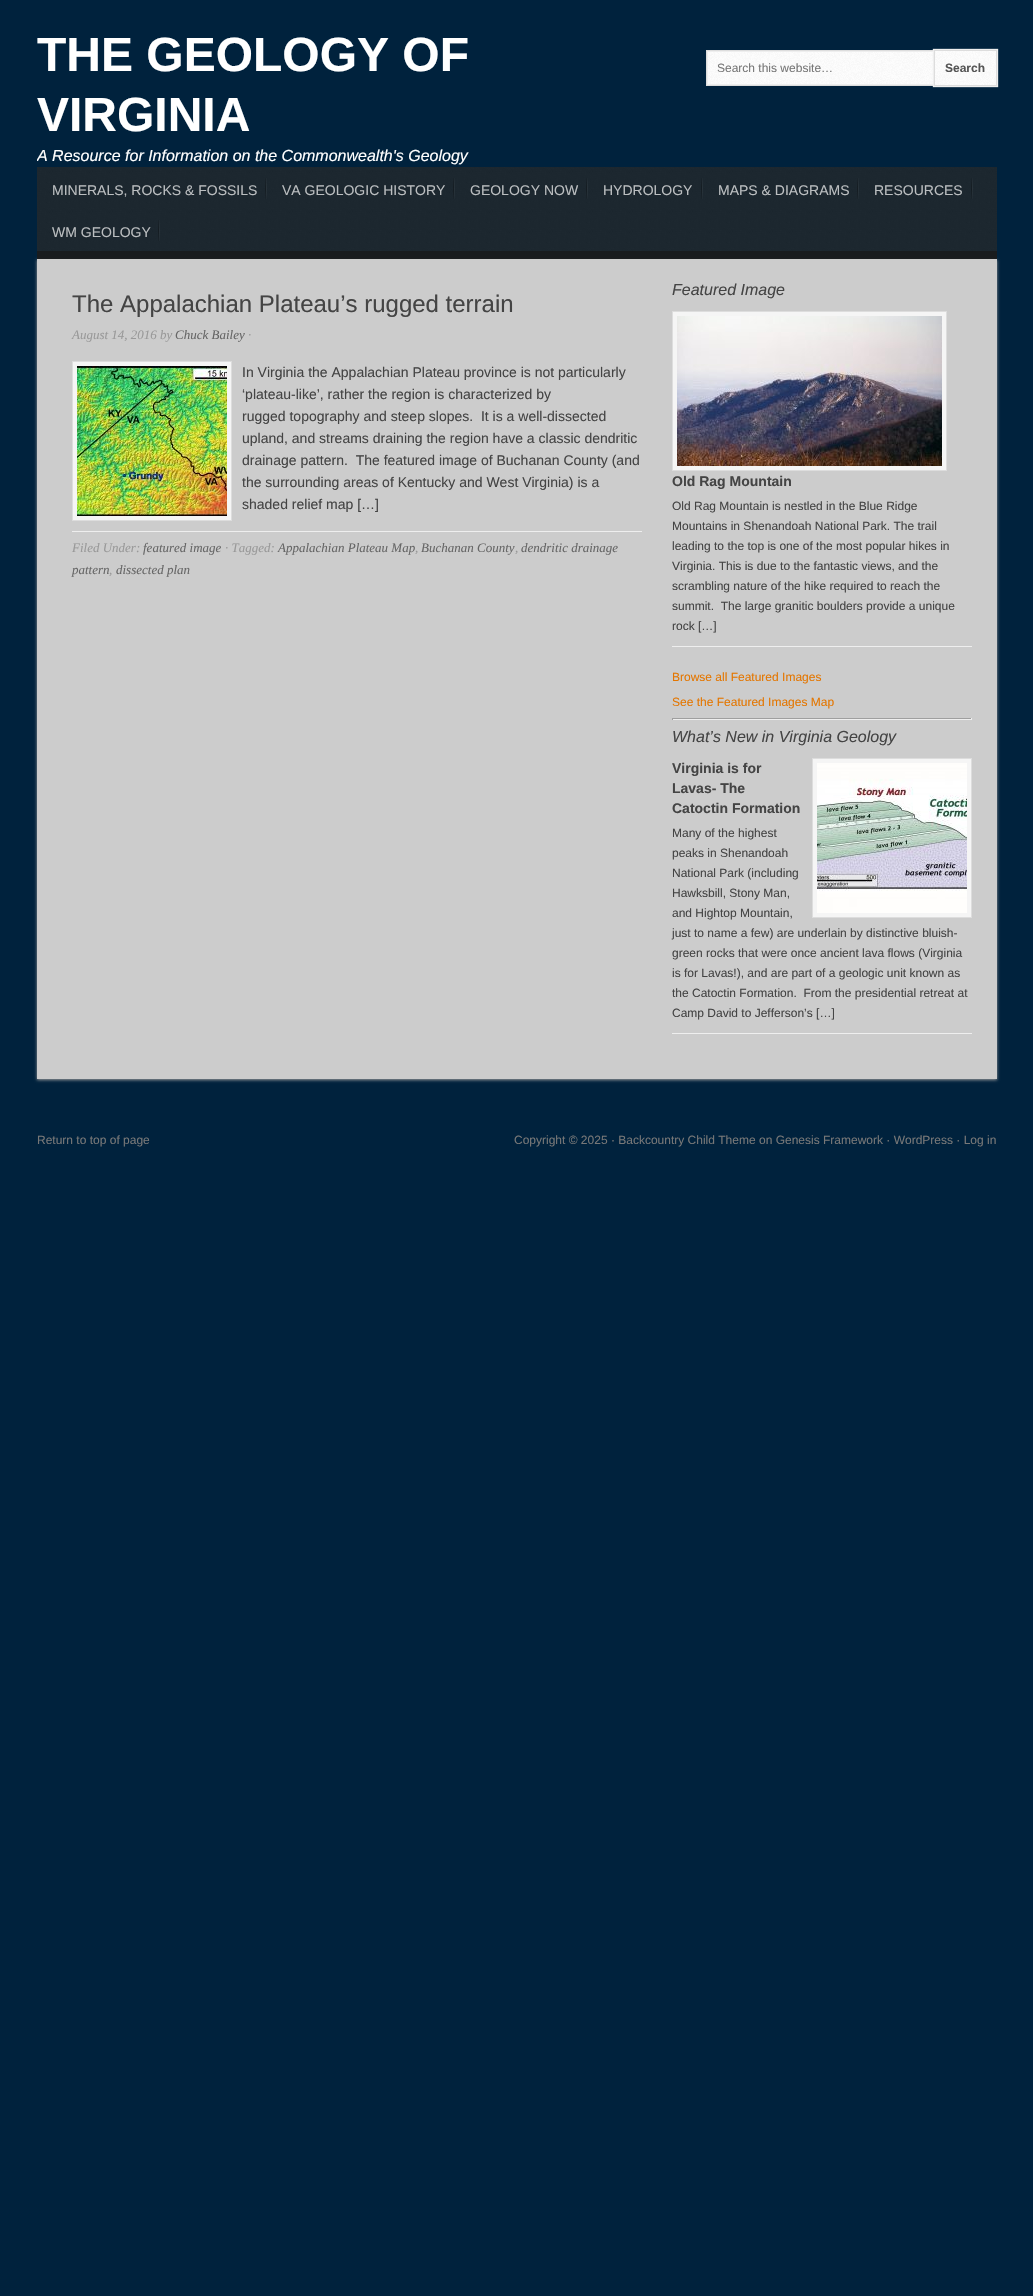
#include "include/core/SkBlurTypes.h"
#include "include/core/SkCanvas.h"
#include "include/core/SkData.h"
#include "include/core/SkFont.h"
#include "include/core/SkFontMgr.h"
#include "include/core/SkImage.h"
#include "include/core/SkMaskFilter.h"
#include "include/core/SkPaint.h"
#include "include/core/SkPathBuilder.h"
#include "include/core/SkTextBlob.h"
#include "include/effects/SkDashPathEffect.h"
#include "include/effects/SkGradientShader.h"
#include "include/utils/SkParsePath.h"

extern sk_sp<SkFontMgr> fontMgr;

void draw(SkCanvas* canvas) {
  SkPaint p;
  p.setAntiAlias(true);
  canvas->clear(SkColorSetRGB(0, 34, 61));
  canvas->drawImageRect(SkImages::DeferredFromEncodedData(SkData::MakeFromFileName("images/1.png")), SkRect::MakeLTRB(708, 52, 934, 84), SkSamplingOptions());
  p.setStyle(SkPaint::kStroke_Style);
  p.setStrokeWidth(1);
  p.setColor(SkColorSetRGB(238, 238, 238));
  canvas->drawRect(SkRect::MakeLTRB(707.5f, 51.5f, 936.5f, 84.5f), p);
  p.setColor(SkColorSetRGB(221, 221, 221));
  canvas->drawRect(SkRect::MakeLTRB(706.5f, 50.5f, 937.5f, 85.5f), p);
  p.setStyle(SkPaint::kFill_Style);
  p.setColor(SkColorSetRGB(238, 238, 238));
  p.setMaskFilter(SkMaskFilter::MakeBlur(kNormal_SkBlurStyle, 0.5f));
  canvas->drawRect(SkRect::MakeLTRB(933, 49, 998, 87), p);
  p.setMaskFilter(nullptr);
  canvas->drawImageRect(SkImages::DeferredFromEncodedData(SkData::MakeFromFileName("images/2.png")), SkRect::MakeLTRB(935, 51, 996, 85), SkSamplingOptions());
  p.setStyle(SkPaint::kStroke_Style);
  p.setColor(SkColorSetRGB(221, 221, 221));
  canvas->drawRect(SkRect::MakeLTRB(934.5f, 50.5f, 996.5f, 85.5f), p);
  p.setStyle(SkPaint::kFill_Style);
  p.setColor(SkColorSetRGB(153, 153, 153));
  p.setMaskFilter(SkMaskFilter::MakeBlur(kNormal_SkBlurStyle, 1.5f));
  canvas->drawRect(SkRect::MakeLTRB(37, 260, 997, 1080), p);
  p.setMaskFilter(nullptr);
  canvas->drawImageRect(SkImages::DeferredFromEncodedData(SkData::MakeFromFileName("images/3.png")), SkRect::MakeLTRB(37, 167, 997, 259), SkSamplingOptions());
  p.setColor(SkColorSetARGB(179, 23, 23, 23));
  canvas->drawRect(SkRect::MakeLTRB(37, 251, 997, 259), p);
  canvas->drawImageRect(SkImages::DeferredFromEncodedData(SkData::MakeFromFileName("images/4.png")), SkRect::MakeLTRB(265, 178, 267, 199), SkSamplingOptions());
  canvas->drawImageRect(SkImages::DeferredFromEncodedData(SkData::MakeFromFileName("images/5.png")), SkRect::MakeLTRB(453, 178, 455, 199), SkSamplingOptions());
  canvas->drawImageRect(SkImages::DeferredFromEncodedData(SkData::MakeFromFileName("images/6.png")), SkRect::MakeLTRB(586, 178, 588, 199), SkSamplingOptions());
  canvas->drawImageRect(SkImages::DeferredFromEncodedData(SkData::MakeFromFileName("images/7.png")), SkRect::MakeLTRB(701, 178, 703, 199), SkSamplingOptions());
  canvas->drawImageRect(SkImages::DeferredFromEncodedData(SkData::MakeFromFileName("images/8.png")), SkRect::MakeLTRB(857, 178, 859, 199), SkSamplingOptions());
  canvas->drawImageRect(SkImages::DeferredFromEncodedData(SkData::MakeFromFileName("images/9.png")), SkRect::MakeLTRB(971, 178, 973, 199), SkSamplingOptions());
  canvas->drawImageRect(SkImages::DeferredFromEncodedData(SkData::MakeFromFileName("images/10.png")), SkRect::MakeLTRB(158, 220, 160, 241), SkSamplingOptions());
  p.setColor(SkColorSetRGB(204, 204, 204));
  canvas->drawRect(SkRect::MakeLTRB(37, 259, 997, 1079), p);
  p.setColor(SkColorSetRGB(245, 245, 245));
  canvas->drawRect(SkRect::MakeLTRB(72.5f, 361.5f, 231.5f, 520.5f), p);
  p.setStyle(SkPaint::kStroke_Style);
  p.setColor(SkColorSetRGB(221, 221, 221));
  canvas->drawRect(SkRect::MakeLTRB(72.5f, 361.5f, 231.5f, 520.5f), p);
  canvas->drawImageRect(SkImages::DeferredFromEncodedData(SkData::MakeFromFileName("images/11.png")), SkRect::MakeLTRB(77, 366, 227, 516), SkSamplingOptions());
  p.setStyle(SkPaint::kFill_Style);
  p.setColor(SkColorSetRGB(238, 238, 238));
  canvas->drawRect(SkRect::MakeLTRB(72, 531, 642, 532), p);
  canvas->drawRect(SkRect::MakeLTRB(672, 646, 972, 647), p);
  p.setColor(SkColorSetRGB(245, 245, 245));
  canvas->drawRect(SkRect::MakeLTRB(672.5f, 311.5f, 946.5f, 470.5f), p);
  p.setStyle(SkPaint::kStroke_Style);
  p.setColor(SkColorSetRGB(221, 221, 221));
  canvas->drawRect(SkRect::MakeLTRB(672.5f, 311.5f, 946.5f, 470.5f), p);
  canvas->drawImageRect(SkImages::DeferredFromEncodedData(SkData::MakeFromFileName("images/12.png")), SkRect::MakeLTRB(677, 316, 942, 466), SkSamplingOptions());
  p.setStyle(SkPaint::kFill_Style);
  p.setColor(SkColorSetRGB(159, 159, 159));
  canvas->drawRect(SkRect::MakeLTRB(672, 718, 972, 719), p);
  p.setColor(SkColorSetRGB(238, 238, 238));
  canvas->drawRect(SkRect::MakeLTRB(971, 718, 972, 720), p);
  canvas->drawRect(SkRect::MakeLTRB(672, 719, 972, 720), p);
  p.setColor(SkColorSetRGB(159, 159, 159));
  canvas->drawRect(SkRect::MakeLTRB(672, 718, 673, 720), p);
  p.setColor(SkColorSetRGB(238, 238, 238));
  canvas->drawRect(SkRect::MakeLTRB(672, 1033, 972, 1034), p);
  p.setColor(SkColorSetRGB(245, 245, 245));
  canvas->drawRect(SkRect::MakeLTRB(812.5f, 758.5f, 971.5f, 917.5f), p);
  p.setStyle(SkPaint::kStroke_Style);
  p.setColor(SkColorSetRGB(221, 221, 221));
  canvas->drawRect(SkRect::MakeLTRB(812.5f, 758.5f, 971.5f, 917.5f), p);
  canvas->drawImageRect(SkImages::DeferredFromEncodedData(SkData::MakeFromFileName("images/13.png")), SkRect::MakeLTRB(817, 763, 967, 913), SkSamplingOptions());
  SkFont font1(fontMgr->matchFamilyStyle("Liberation Sans", SkFontStyle::Bold()), 48);
  font1.setSubpixel(true);
  p.setStyle(SkPaint::kFill_Style);
  p.setColor(SK_ColorWHITE);
  canvas->drawString("THE GEOLOGY OF", 37, 71, font1, p);
  canvas->drawString("VIRGINIA", 37, 131, font1, p);
  canvas->save();
  canvas->clipRect(SkRect::MakeLTRB(37, 0, 677, 167));
  SkFont font2(fontMgr->matchFamilyStyle("Liberation Sans", SkFontStyle::Italic()), 16);
  font2.setSubpixel(true);
  canvas->drawString("A Resource for Information on the Commonwealth's Geology", 37, 161, font2, p);
  canvas->restore();
  SkFont font3(fontMgr->matchFamilyStyle("Liberation Sans", SkFontStyle::Normal()), 12);
  font3.setSubpixel(true);
  p.setColor(SkColorSetRGB(119, 119, 119));
  canvas->drawString("Search this website…", 717, 72, font3, p);
  SkFont font4(fontMgr->matchFamilyStyle("Liberation Sans", SkFontStyle::Bold()), 12);
  font4.setSubpixel(true);
  p.setColor(SkColorSetRGB(85, 85, 85));
  canvas->drawString("Search", 945, 72, font4, p);
  SkFont font5(fontMgr->matchFamilyStyle("Liberation Sans", SkFontStyle::Normal()), 14);
  font5.setSubpixel(true);
  p.setColor(SkColorSetRGB(187, 190, 192));
  canvas->drawString("MINERALS, ROCKS & FOSSILS", 52, 195, font5, p);
  canvas->drawString("VA GEOLOGIC HISTORY", 282, 195, font5, p);
  canvas->drawString("GEOLOGY NOW", 470, 195, font5, p);
  canvas->drawString("HYDROLOGY", 603, 195, font5, p);
  canvas->drawString("MAPS & DIAGRAMS", 718, 195, font5, p);
  canvas->drawString("RESOURCES", 874, 195, font5, p);
  canvas->drawString("WM GEOLOGY", 52, 237, font5, p);
  SkFont font6(fontMgr->matchFamilyStyle("Liberation Sans", SkFontStyle::Normal()), 24);
  font6.setSubpixel(true);
  p.setColor(SkColorSetRGB(68, 68, 68));
  canvas->drawString("The Appalachian Plateau’s rugged terrain", 72, 312, font6, p);
  SkFont font7(fontMgr->matchFamilyStyle("Liberation Serif", SkFontStyle::Italic()), 13);
  font7.setSubpixel(true);
  p.setColor(SkColorSetRGB(153, 153, 153));
  canvas->drawString("August 14, 2016 by", 72, 339, font7, p);
  p.setColor(SkColorSetRGB(102, 102, 102));
  canvas->drawString("Chuck Bailey", 175, 339, font7, p);
  p.setColor(SkColorSetRGB(153, 153, 153));
  canvas->drawString("·", 248, 339, font7, p);
  p.setColor(SkColorSetRGB(68, 68, 68));
  canvas->drawString("In Virginia the Appalachian Plateau province is not particularly", 242, 377, font5, p);
  canvas->drawString("‘plateau-like’, rather the region is characterized by", 242, 399, font5, p);
  canvas->drawString("rugged topography and steep slopes.  It is a well-dissected", 242, 421, font5, p);
  canvas->drawString("upland, and streams draining the region have a classic dendritic", 242, 443, font5, p);
  canvas->drawString("drainage pattern.  The featured image of Buchanan County (and", 242, 465, font5, p);
  canvas->drawString("the surrounding areas of Kentucky and West Virginia) is a", 242, 487, font5, p);
  canvas->drawString("shaded relief map […]", 242, 509, font5, p);
  p.setColor(SkColorSetRGB(153, 153, 153));
  canvas->drawString("Filed Under:", 72, 552, font7, p);
  p.setColor(SkColorSetRGB(102, 102, 102));
  canvas->drawString("featured image", 143, 552, font7, p);
  p.setColor(SkColorSetRGB(153, 153, 153));
  canvas->drawString("· Tagged:", 225, 552, font7, p);
  p.setColor(SkColorSetRGB(102, 102, 102));
  canvas->drawString("Appalachian Plateau Map", 278, 552, font7, p);
  p.setColor(SkColorSetRGB(153, 153, 153));
  canvas->drawString(",", 415, 552, font7, p);
  p.setColor(SkColorSetRGB(102, 102, 102));
  canvas->drawString("Buchanan County", 421, 552, font7, p);
  p.setColor(SkColorSetRGB(153, 153, 153));
  canvas->drawString(",", 515, 552, font7, p);
  p.setColor(SkColorSetRGB(102, 102, 102));
  canvas->drawString("dendritic drainage", 521, 552, font7, p);
  canvas->drawString("pattern", 72, 574, font7, p);
  p.setColor(SkColorSetRGB(153, 153, 153));
  canvas->drawString(",", 109, 574, font7, p);
  p.setColor(SkColorSetRGB(102, 102, 102));
  canvas->drawString("dissected plan", 116, 574, font7, p);
  p.setColor(SkColorSetRGB(68, 68, 68));
  canvas->drawString("Featured Image", 672, 295, font2, p);
  SkFont font8(fontMgr->matchFamilyStyle("Liberation Sans", SkFontStyle::Bold()), 14);
  font8.setSubpixel(true);
  canvas->drawString("Old Rag Mountain", 672, 486, font8, p);
  canvas->drawString("Old Rag Mountain is nestled in the Blue Ridge", 672, 510, font3, p);
  canvas->drawString("Mountains in Shenandoah National Park. The trail", 672, 530, font3, p);
  canvas->drawString("leading to the top is one of the most popular hikes in", 672, 550, font3, p);
  canvas->drawString("Virginia. This is due to the fantastic views, and the", 672, 570, font3, p);
  canvas->drawString("scrambling nature of the hike required to reach the", 672, 590, font3, p);
  canvas->drawString("summit.  The large granitic boulders provide a unique", 672, 610, font3, p);
  canvas->drawString("rock […]", 672, 630, font3, p);
  p.setColor(SkColorSetRGB(228, 118, 0));
  canvas->drawString("Browse all Featured Images", 672, 681, font3, p);
  canvas->drawString("See the Featured Images Map", 672, 706, font3, p);
  p.setColor(SkColorSetRGB(68, 68, 68));
  canvas->drawString("What’s New in Virginia Geology", 672, 742, font2, p);
  canvas->drawString("Virginia is for", 672, 773, font8, p);
  canvas->drawString("Lavas- The", 672, 793, font8, p);
  canvas->drawString("Catoctin Formation", 672, 813, font8, p);
  canvas->drawString("Many of the highest", 672, 837, font3, p);
  canvas->drawString("peaks in Shenandoah", 672, 857, font3, p);
  canvas->drawString("National Park (including", 672, 877, font3, p);
  canvas->drawString("Hawksbill, Stony Man,", 672, 897, font3, p);
  canvas->drawString("and Hightop Mountain,", 672, 917, font3, p);
  canvas->drawString("just to name a few) are underlain by distinctive bluish-", 672, 937, font3, p);
  canvas->drawString("green rocks that were once ancient lava flows (Virginia", 672, 957, font3, p);
  canvas->drawString("is for Lavas!), and are part of a geologic unit known as", 672, 977, font3, p);
  canvas->drawString("the Catoctin Formation.  From the presidential retreat at", 672, 997, font3, p);
  canvas->drawString("Camp David to Jefferson’s […]", 672, 1017, font3, p);
  p.setColor(SkColorSetRGB(119, 119, 119));
  canvas->drawString("Return to top of page", 37, 1144, font3, p);
  canvas->drawString("Copyright © 2025 · Backcountry Child Theme on Genesis Framework · WordPress · Log in", 514, 1144, font3, p);
}
